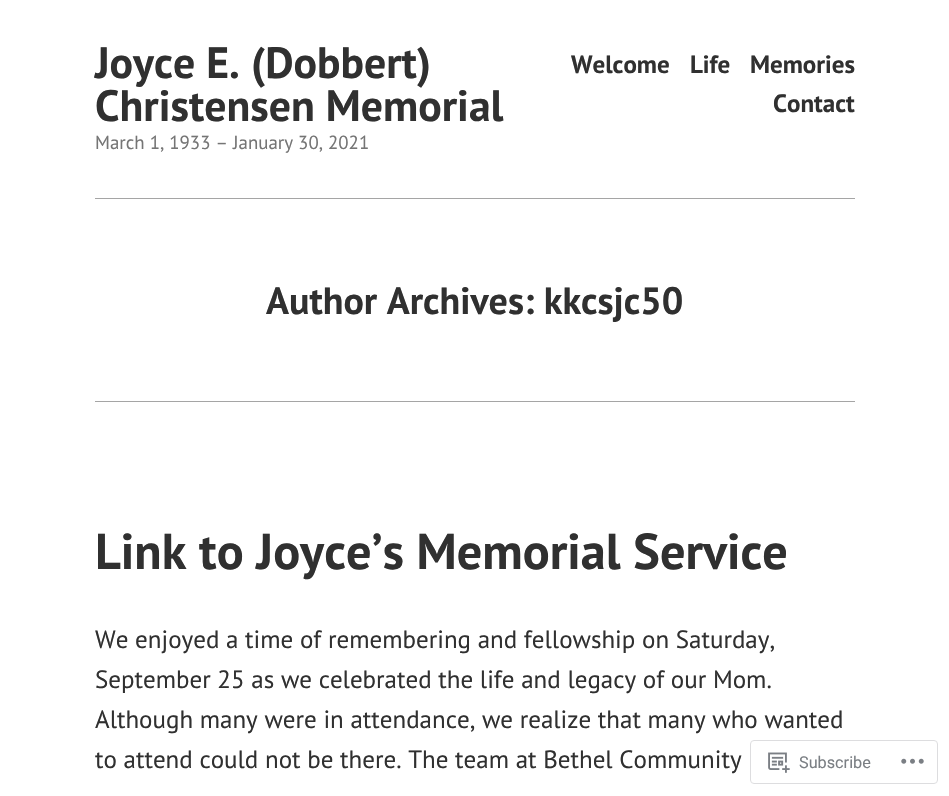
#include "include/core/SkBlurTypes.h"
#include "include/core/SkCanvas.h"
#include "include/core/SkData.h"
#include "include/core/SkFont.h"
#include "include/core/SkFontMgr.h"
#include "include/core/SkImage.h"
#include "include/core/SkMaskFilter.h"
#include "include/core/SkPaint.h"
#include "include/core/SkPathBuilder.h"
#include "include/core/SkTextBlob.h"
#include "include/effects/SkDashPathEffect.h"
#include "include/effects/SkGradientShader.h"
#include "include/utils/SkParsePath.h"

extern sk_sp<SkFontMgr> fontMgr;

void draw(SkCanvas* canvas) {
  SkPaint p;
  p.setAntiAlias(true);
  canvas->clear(SK_ColorWHITE);
  p.setColor(SkColorSetRGB(165, 165, 165));
  canvas->drawRect(SkRect::MakeLTRB(95, 198, 855, 199), p);
  canvas->drawRect(SkRect::MakeLTRB(95, 401, 855, 402), p);
  p.setStyle(SkPaint::kStroke_Style);
  p.setStrokeWidth(1);
  p.setColor(SkColorSetARGB(250, 220, 220, 222));
  canvas->drawRoundRect(SkRect::MakeLTRB(750.5f, 740.5f, 937.5f, 783.5f), 3.5f, 3.5f, p);
  canvas->drawImageRect(SkImages::DeferredFromEncodedData(SkData::MakeFromFileName("images/1.png")), SkRect::MakeLTRB(768, 752, 790, 773), SkSamplingOptions());
  canvas->drawImageRect(SkImages::DeferredFromEncodedData(SkData::MakeFromFileName("images/2.png")), SkRect::MakeLTRB(901, 758, 924, 764), SkSamplingOptions());
  SkFont font1(fontMgr->matchFamilyStyle("PT Sans", SkFontStyle::Bold()), 43.75f);
  font1.setSubpixel(true);
  p.setStyle(SkPaint::kFill_Style);
  p.setColor(SkColorSetRGB(48, 48, 48));
  canvas->drawString("Joyce E. (Dobbert)", 95, 78, font1, p);
  canvas->drawString("Christensen Memorial", 95, 121, font1, p);
  SkFont font2(fontMgr->matchFamilyStyle("PT Sans", SkFontStyle::Bold()), 25);
  font2.setSubpixel(true);
  canvas->drawString("Welcome", 571, 73, font2, p);
  canvas->drawString("Life", 690, 73, font2, p);
  canvas->drawString("Memories", 750, 73, font2, p);
  canvas->drawString("Contact", 773, 112, font2, p);
  SkFont font3(fontMgr->matchFamilyStyle("PT Sans", SkFontStyle::Normal()), 18.9f);
  font3.setSubpixel(true);
  p.setColor(SkColorSetRGB(117, 117, 117));
  canvas->drawString("March 1, 1933 – January 30, 2021", 95, 149, font3, p);
  SkFont font4(fontMgr->matchFamilyStyle("PT Sans", SkFontStyle::Bold()), 38);
  font4.setSubpixel(true);
  p.setColor(SkColorSetRGB(48, 48, 48));
  canvas->drawString("Author Archives: kkcsjc50", 266, 314, font4, p);
  SkFont font5(fontMgr->matchFamilyStyle("PT Sans", SkFontStyle::Bold()), 50.25f);
  font5.setSubpixel(true);
  canvas->drawString("Link to Joyce’s Memorial Service", 95, 569, font5, p);
  SkFont font6(fontMgr->matchFamilyStyle("PT Sans", SkFontStyle::Normal()), 25);
  font6.setSubpixel(true);
  canvas->drawString("We enjoyed a time of remembering and fellowship on Saturday,", 95, 648, font6, p);
  canvas->drawString("September 25 as we celebrated the life and legacy of our Mom.", 95, 688, font6, p);
  canvas->drawString("Although many were in attendance, we realize that many who wanted", 95, 728, font6, p);
  canvas->drawString("to attend could not be there. The team at Bethel Community", 95, 768, font6, p);
  SkFont font7(fontMgr->matchFamilyStyle("Roboto", SkFontStyle::Normal()), 16.25f);
  font7.setSubpixel(true);
  p.setColor(SkColorSetRGB(123, 127, 132));
  canvas->drawString("Subscribe", 799, 768, font7, p);
}
